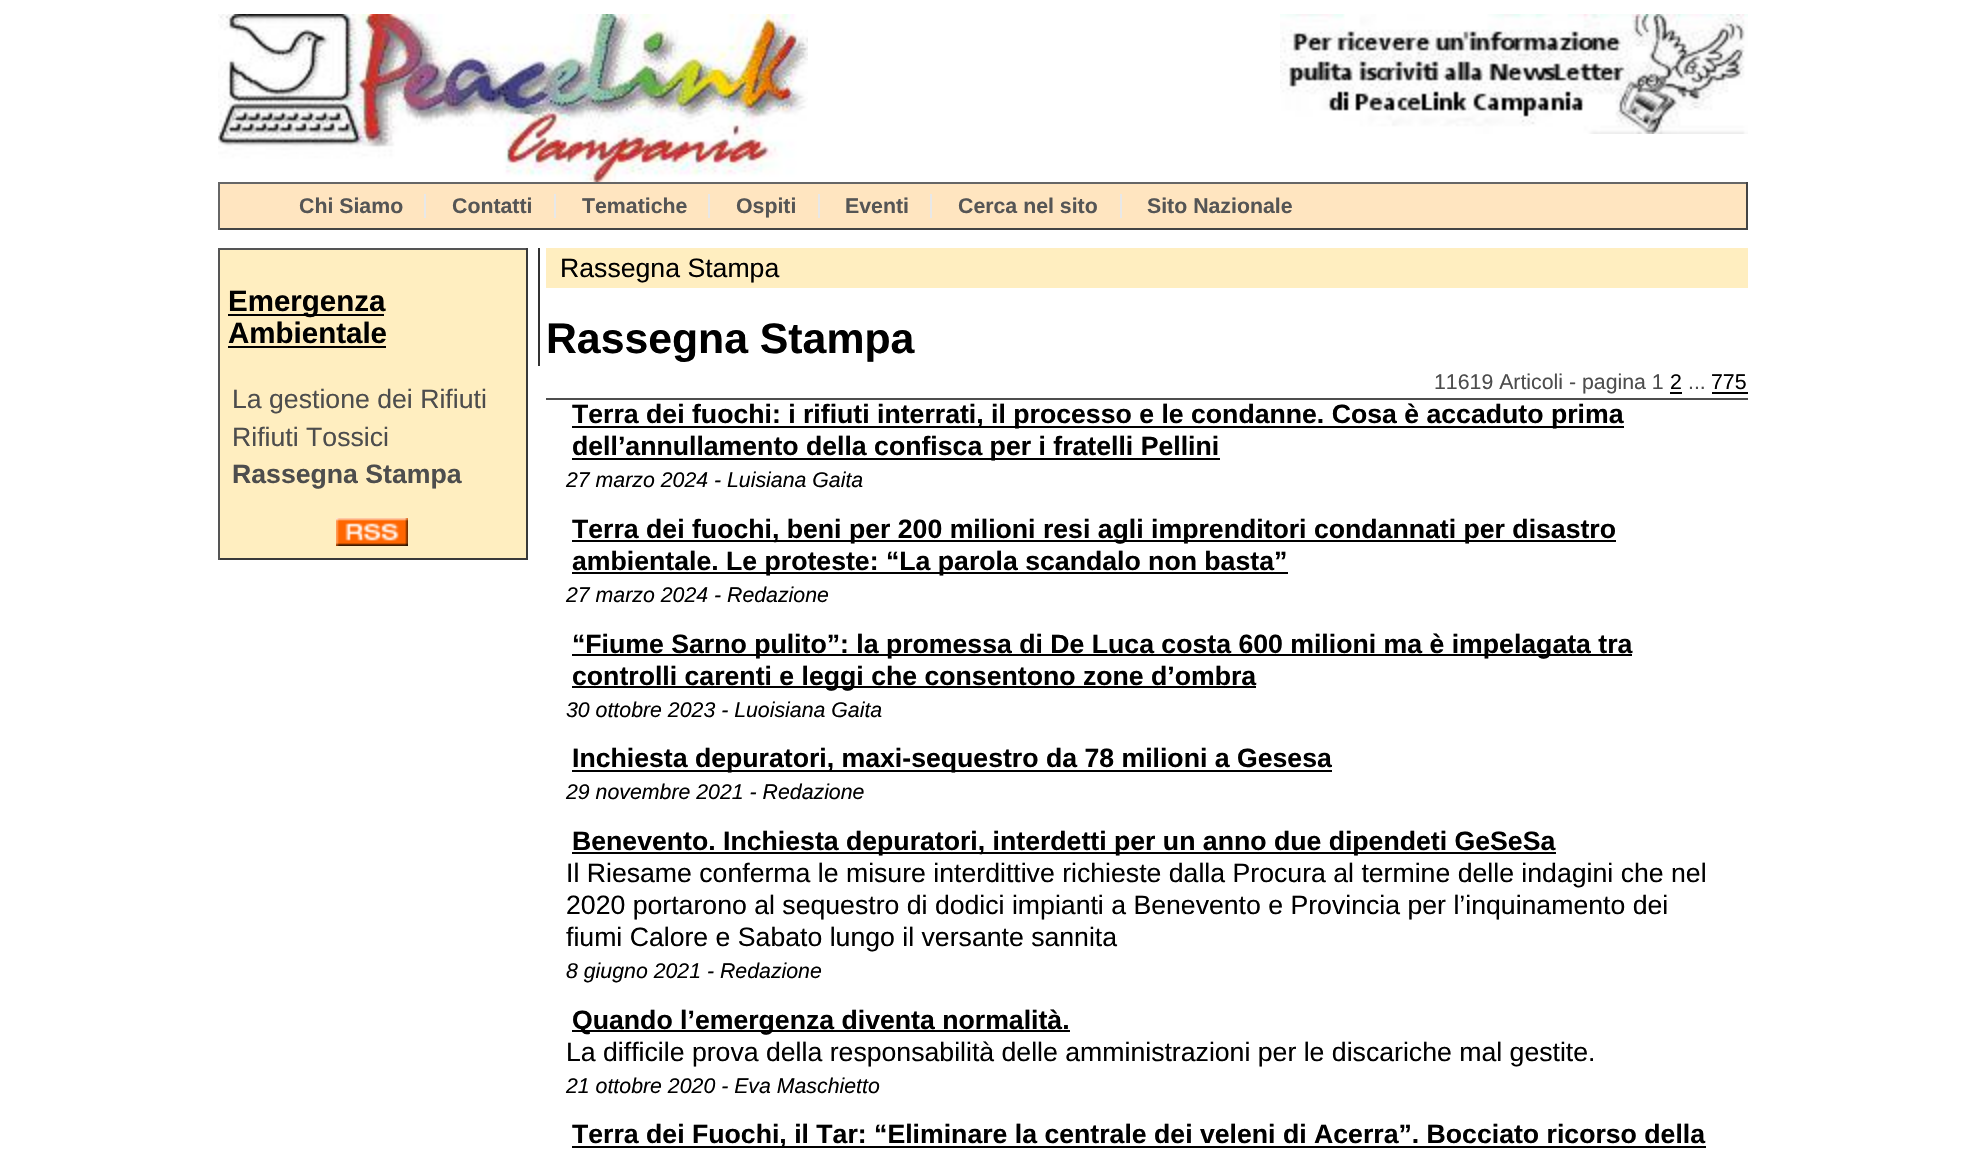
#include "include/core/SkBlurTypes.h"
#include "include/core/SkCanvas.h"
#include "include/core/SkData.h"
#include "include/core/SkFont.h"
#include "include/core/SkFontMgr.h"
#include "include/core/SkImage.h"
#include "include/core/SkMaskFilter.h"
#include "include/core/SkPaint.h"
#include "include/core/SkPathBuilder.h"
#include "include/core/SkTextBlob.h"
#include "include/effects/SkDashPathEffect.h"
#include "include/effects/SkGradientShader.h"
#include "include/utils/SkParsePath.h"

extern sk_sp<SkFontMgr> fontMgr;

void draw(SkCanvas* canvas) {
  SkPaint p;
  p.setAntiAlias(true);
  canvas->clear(SK_ColorWHITE);
  canvas->drawImageRect(SkImages::DeferredFromEncodedData(SkData::MakeFromFileName("images/1.png")), SkRect::MakeLTRB(218, 14, 808, 182), SkSamplingOptions());
  canvas->drawImageRect(SkImages::DeferredFromEncodedData(SkData::MakeFromFileName("images/2.png")), SkRect::MakeLTRB(1280, 14, 1748, 134), SkSamplingOptions());
  p.setColor(SkColorSetRGB(255, 229, 192));
  canvas->drawRect(SkRect::MakeLTRB(220, 184, 1746, 228), p);
  p.setColor(SkColorSetRGB(102, 102, 102));
  canvas->drawRect(SkRect::MakeLTRB(218, 182, 1748, 184), p);
  p.setColor(SkColorSetRGB(68, 68, 68));
  canvas->drawRect(SkRect::MakeLTRB(1746, 182, 1748, 230), p);
  canvas->drawRect(SkRect::MakeLTRB(218, 228, 1748, 230), p);
  p.setColor(SkColorSetRGB(102, 102, 102));
  canvas->drawRect(SkRect::MakeLTRB(218, 182, 220, 230), p);
  p.setColor(SkColorSetRGB(232, 232, 232));
  canvas->drawRect(SkRect::MakeLTRB(424, 194, 426, 218), p);
  canvas->drawRect(SkRect::MakeLTRB(554, 194, 556, 218), p);
  canvas->drawRect(SkRect::MakeLTRB(708, 194, 710, 218), p);
  canvas->drawRect(SkRect::MakeLTRB(818, 194, 820, 218), p);
  canvas->drawRect(SkRect::MakeLTRB(930, 194, 932, 218), p);
  canvas->drawRect(SkRect::MakeLTRB(1120, 194, 1122, 218), p);
  p.setColor(SkColorSetRGB(255, 238, 192));
  canvas->drawRect(SkRect::MakeLTRB(220, 250, 526, 558), p);
  p.setColor(SkColorSetRGB(85, 85, 85));
  canvas->drawRect(SkRect::MakeLTRB(218, 248, 528, 250), p);
  p.setColor(SkColorSetRGB(57, 57, 57));
  canvas->drawRect(SkRect::MakeLTRB(526, 248, 528, 560), p);
  canvas->drawRect(SkRect::MakeLTRB(218, 558, 528, 560), p);
  p.setColor(SkColorSetRGB(85, 85, 85));
  canvas->drawRect(SkRect::MakeLTRB(218, 248, 220, 560), p);
  p.setColor(SK_ColorBLACK);
  canvas->drawRect(SkRect::MakeLTRB(228, 314, 384, 316), p);
  canvas->drawRect(SkRect::MakeLTRB(228, 346, 386, 348), p);
  canvas->drawImageRect(SkImages::DeferredFromEncodedData(SkData::MakeFromFileName("images/3.png")), SkRect::MakeLTRB(336, 518, 408, 546), SkSamplingOptions());
  p.setColor(SkColorSetRGB(51, 51, 51));
  canvas->drawRect(SkRect::MakeLTRB(538, 248, 540, 366), p);
  p.setColor(SkColorSetRGB(255, 238, 192));
  canvas->drawRect(SkRect::MakeLTRB(546, 248, 1748, 288), p);
  p.setColor(SkColorSetRGB(77, 77, 77));
  canvas->drawRect(SkRect::MakeLTRB(546, 398, 1748, 400), p);
  p.setColor(SK_ColorBLACK);
  canvas->drawRect(SkRect::MakeLTRB(1670, 392, 1682, 394), p);
  canvas->drawRect(SkRect::MakeLTRB(1712, 392, 1748, 394), p);
  canvas->drawRect(SkRect::MakeLTRB(572, 426, 1624, 428), p);
  canvas->drawRect(SkRect::MakeLTRB(572, 458, 1220, 460), p);
  canvas->drawRect(SkRect::MakeLTRB(572, 540, 1616, 542), p);
  canvas->drawRect(SkRect::MakeLTRB(572, 572, 1288, 574), p);
  canvas->drawRect(SkRect::MakeLTRB(572, 654, 1632, 656), p);
  canvas->drawRect(SkRect::MakeLTRB(572, 686, 1256, 688), p);
  canvas->drawRect(SkRect::MakeLTRB(572, 770, 1332, 772), p);
  canvas->drawRect(SkRect::MakeLTRB(572, 852, 1556, 854), p);
  canvas->drawRect(SkRect::MakeLTRB(572, 1030, 1070, 1032), p);
  canvas->drawRect(SkRect::MakeLTRB(572, 1146, 1706, 1148), p);
  SkFont font1(fontMgr->matchFamilyStyle("Liberation Sans", SkFontStyle::Bold()), 21.3f);
  font1.setSubpixel(true);
  p.setColor(SkColorSetRGB(85, 85, 85));
  canvas->drawString("Chi Siamo", 299, 213, font1, p);
  canvas->drawString("Contatti", 452, 213, font1, p);
  canvas->drawString("Tematiche", 582, 213, font1, p);
  canvas->drawString("Ospiti", 736, 213, font1, p);
  canvas->drawString("Eventi", 845, 213, font1, p);
  canvas->drawString("Cerca nel sito", 958, 213, font1, p);
  canvas->drawString("Sito Nazionale", 1147, 213, font1, p);
  SkFont font2(fontMgr->matchFamilyStyle("Liberation Sans", SkFontStyle::Bold()), 29.5f);
  font2.setSubpixel(true);
  p.setColor(SK_ColorBLACK);
  canvas->drawString("Emergenza", 228, 311, font2, p);
  canvas->drawString("Ambientale", 228, 343, font2, p);
  SkFont font3(fontMgr->matchFamilyStyle("Liberation Sans", SkFontStyle::Normal()), 26.65f);
  font3.setSubpixel(true);
  p.setColor(SkColorSetRGB(77, 77, 77));
  canvas->drawString("La gestione dei Rifiuti", 232, 408, font3, p);
  canvas->drawString("Rifiuti Tossici", 232, 446, font3, p);
  SkFont font4(fontMgr->matchFamilyStyle("Liberation Sans", SkFontStyle::Bold()), 26.65f);
  font4.setSubpixel(true);
  canvas->drawString("Rassegna Stampa", 232, 483, font4, p);
  p.setColor(SK_ColorBLACK);
  canvas->drawString("Rassegna Stampa", 560, 277, font3, p);
  SkFont font5(fontMgr->matchFamilyStyle("Liberation Sans", SkFontStyle::Bold()), 42.75f);
  font5.setSubpixel(true);
  canvas->drawString("Rassegna Stampa", 546, 353, font5, p);
  SkFont font6(fontMgr->matchFamilyStyle("Liberation Sans", SkFontStyle::Normal()), 21.3f);
  font6.setSubpixel(true);
  p.setColor(SkColorSetRGB(77, 77, 77));
  canvas->drawString("11619 Articoli - pagina 1", 1434, 389, font6, p);
  p.setColor(SK_ColorBLACK);
  canvas->drawString("2", 1670, 389, font6, p);
  p.setColor(SkColorSetRGB(77, 77, 77));
  canvas->drawString("...", 1688, 389, font6, p);
  p.setColor(SK_ColorBLACK);
  canvas->drawString("775", 1711, 389, font6, p);
  canvas->drawString("Terra dei fuochi: i rifiuti interrati, il processo e le condanne. Cosa è accaduto prima", 572, 423, font4, p);
  canvas->drawString("dell’annullamento della confisca per i fratelli Pellini", 572, 455, font4, p);
  SkFont font7(fontMgr->matchFamilyStyle("Liberation Sans", SkFontStyle::Italic()), 21.3f);
  font7.setSubpixel(true);
  canvas->drawString("27 marzo 2024 - Luisiana Gaita", 566, 487, font7, p);
  canvas->drawString("Terra dei fuochi, beni per 200 milioni resi agli imprenditori condannati per disastro", 572, 538, font4, p);
  canvas->drawString("ambientale. Le proteste: “La parola scandalo non basta”", 572, 570, font4, p);
  canvas->drawString("27 marzo 2024 - Redazione", 566, 602, font7, p);
  canvas->drawString("“Fiume Sarno pulito”: la promessa di De Luca costa 600 milioni ma è impelagata tra", 572, 653, font4, p);
  canvas->drawString("controlli carenti e leggi che consentono zone d’ombra", 572, 685, font4, p);
  canvas->drawString("30 ottobre 2023 - Luoisiana Gaita", 566, 717, font7, p);
  canvas->drawString("Inchiesta depuratori, maxi-sequestro da 78 milioni a Gesesa", 572, 767, font4, p);
  canvas->drawString("29 novembre 2021 - Redazione", 566, 799, font7, p);
  canvas->drawString("Benevento. Inchiesta depuratori, interdetti per un anno due dipendeti GeSeSa", 572, 850, font4, p);
  canvas->drawString("Il Riesame conferma le misure interdittive richieste dalla Procura al termine delle indagini che nel", 566, 882, font3, p);
  canvas->drawString("2020 portarono al sequestro di dodici impianti a Benevento e Provincia per l’inquinamento dei", 566, 914, font3, p);
  canvas->drawString("fiumi Calore e Sabato lungo il versante sannita", 566, 946, font3, p);
  canvas->drawString("8 giugno 2021 - Redazione", 566, 978, font7, p);
  canvas->drawString("Quando l’emergenza diventa normalità.", 572, 1029, font4, p);
  canvas->drawString("La difficile prova della responsabilità delle amministrazioni per le discariche mal gestite.", 566, 1061, font3, p);
  canvas->drawString("21 ottobre 2020 - Eva Maschietto", 566, 1093, font7, p);
  canvas->drawString("Terra dei Fuochi, il Tar: “Eliminare la centrale dei veleni di Acerra”. Bocciato ricorso della", 572, 1143, font4, p);
}
